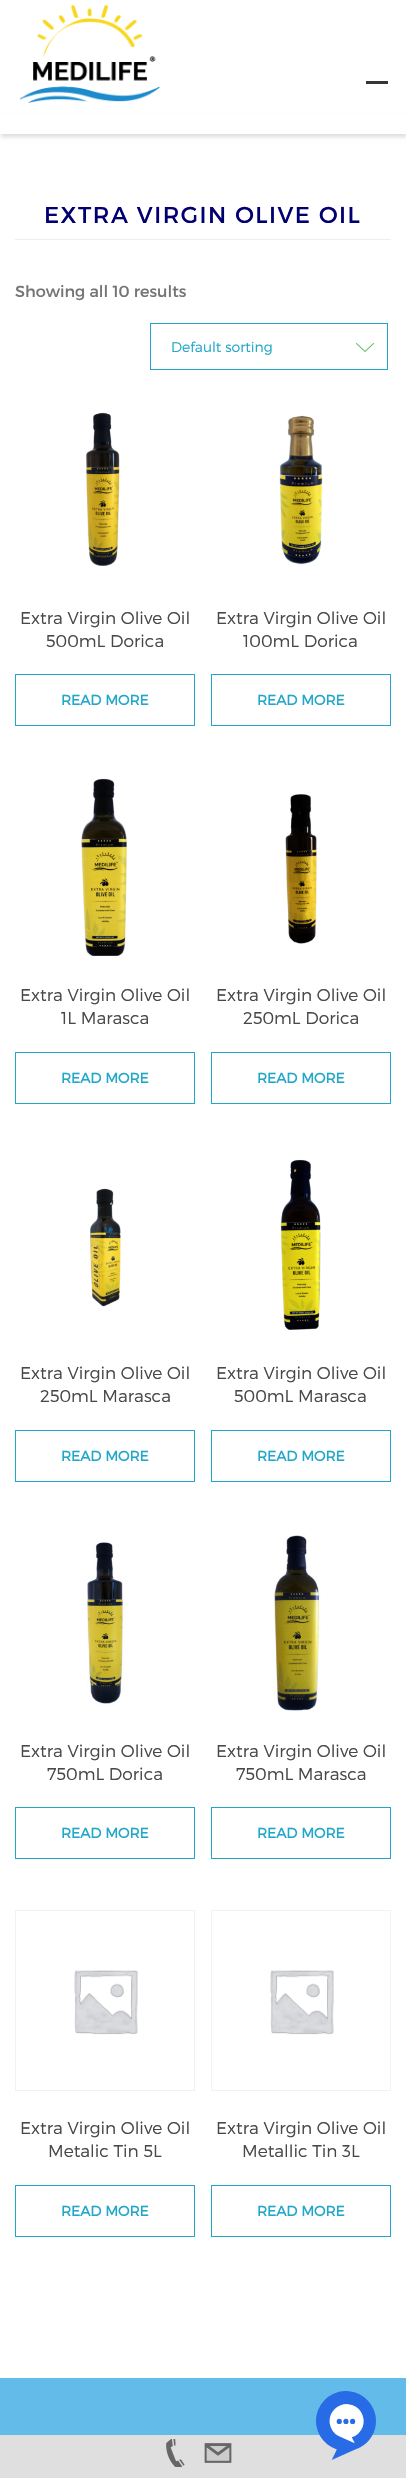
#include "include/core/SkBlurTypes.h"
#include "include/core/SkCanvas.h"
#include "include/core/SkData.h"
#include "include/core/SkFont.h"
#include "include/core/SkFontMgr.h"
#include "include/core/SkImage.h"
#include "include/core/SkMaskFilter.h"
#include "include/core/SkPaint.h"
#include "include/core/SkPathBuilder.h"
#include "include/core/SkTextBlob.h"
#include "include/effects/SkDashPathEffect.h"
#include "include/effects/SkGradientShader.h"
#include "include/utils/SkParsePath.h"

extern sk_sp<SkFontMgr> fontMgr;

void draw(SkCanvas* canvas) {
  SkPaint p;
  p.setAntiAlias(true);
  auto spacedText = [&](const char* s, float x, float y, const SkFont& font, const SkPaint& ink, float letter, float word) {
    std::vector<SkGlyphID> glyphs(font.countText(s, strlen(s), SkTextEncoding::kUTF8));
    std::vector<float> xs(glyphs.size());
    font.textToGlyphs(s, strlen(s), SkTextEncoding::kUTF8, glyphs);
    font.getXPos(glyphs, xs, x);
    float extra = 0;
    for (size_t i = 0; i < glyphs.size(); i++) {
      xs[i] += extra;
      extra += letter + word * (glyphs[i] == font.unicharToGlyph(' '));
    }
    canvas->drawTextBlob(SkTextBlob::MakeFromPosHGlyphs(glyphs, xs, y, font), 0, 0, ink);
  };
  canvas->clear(SK_ColorWHITE);
  canvas->drawImageRect(SkImages::DeferredFromEncodedData(SkData::MakeFromFileName("images/1.png")), SkRect::MakeLTRB(20, 5, 160, 103), SkSamplingOptions());
  p.setColor(SkColorSetRGB(54, 54, 54));
  canvas->drawRect(SkRect::MakeLTRB(366, 81, 388, 84), p);
  canvas->save();
  canvas->clipPath(SkPathBuilder(SkPathFillType::kEvenOdd).moveTo(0, 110).lineTo(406, 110).lineTo(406, 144).lineTo(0, 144).close().moveTo(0, 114).lineTo(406, 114).lineTo(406, 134).lineTo(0, 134).close().detach(), true);
  p.setColor(SkColorSetRGB(221, 221, 221));
  p.setMaskFilter(SkMaskFilter::MakeBlur(kNormal_SkBlurStyle, 2));
  canvas->drawRect(SkRect::MakeLTRB(1, 117, 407, 137), p);
  p.setMaskFilter(nullptr);
  canvas->restore();
  p.setColor(SkColorSetRGB(238, 238, 238));
  canvas->drawRect(SkRect::MakeLTRB(15, 239, 391, 240), p);
  canvas->drawImageRect(SkImages::DeferredFromEncodedData(SkData::MakeFromFileName("images/2.png")), SkRect::MakeLTRB(356, 343, 374, 352), SkSamplingOptions());
  p.setStyle(SkPaint::kStroke_Style);
  p.setStrokeWidth(1);
  p.setColor(SkColorSetRGB(32, 167, 201));
  canvas->drawRect(SkRect::MakeLTRB(150.5f, 323.5f, 387.5f, 369.5f), p);
  canvas->drawImageRect(SkImages::DeferredFromEncodedData(SkData::MakeFromFileName("images/3.png")), SkRect::MakeLTRB(86, 412, 149, 579), SkSamplingOptions());
  canvas->drawRect(SkRect::MakeLTRB(15.5f, 674.5f, 194.5f, 725.5f), p);
  canvas->drawImageRect(SkImages::DeferredFromEncodedData(SkData::MakeFromFileName("images/4.png")), SkRect::MakeLTRB(279, 415, 323, 565), SkSamplingOptions());
  canvas->drawRect(SkRect::MakeLTRB(211.5f, 674.5f, 390.5f, 725.5f), p);
  canvas->drawImageRect(SkImages::DeferredFromEncodedData(SkData::MakeFromFileName("images/5.png")), SkRect::MakeLTRB(81, 778, 127, 956), SkSamplingOptions());
  canvas->drawRect(SkRect::MakeLTRB(15.5f, 1052.5f, 194.5f, 1103.5f), p);
  canvas->drawImageRect(SkImages::DeferredFromEncodedData(SkData::MakeFromFileName("images/6.png")), SkRect::MakeLTRB(285, 794, 317, 944), SkSamplingOptions());
  canvas->drawRect(SkRect::MakeLTRB(211.5f, 1052.5f, 390.5f, 1103.5f), p);
  canvas->drawImageRect(SkImages::DeferredFromEncodedData(SkData::MakeFromFileName("images/7.png")), SkRect::MakeLTRB(90, 1188, 121, 1307), SkSamplingOptions());
  canvas->drawRect(SkRect::MakeLTRB(15.5f, 1430.5f, 194.5f, 1481.5f), p);
  canvas->drawImageRect(SkImages::DeferredFromEncodedData(SkData::MakeFromFileName("images/8.png")), SkRect::MakeLTRB(280, 1156, 354, 1330), SkSamplingOptions());
  canvas->drawRect(SkRect::MakeLTRB(211.5f, 1430.5f, 390.5f, 1481.5f), p);
  canvas->drawImageRect(SkImages::DeferredFromEncodedData(SkData::MakeFromFileName("images/9.png")), SkRect::MakeLTRB(87, 1542, 125, 1706), SkSamplingOptions());
  canvas->drawRect(SkRect::MakeLTRB(15.5f, 1807.5f, 194.5f, 1858.5f), p);
  canvas->drawImageRect(SkImages::DeferredFromEncodedData(SkData::MakeFromFileName("images/10.png")), SkRect::MakeLTRB(273, 1534, 321, 1711), SkSamplingOptions());
  canvas->drawRect(SkRect::MakeLTRB(211.5f, 1807.5f, 390.5f, 1858.5f), p);
  p.setColor(SkColorSetRGB(242, 242, 242));
  canvas->drawRect(SkRect::MakeLTRB(15.5f, 1910.5f, 194.5f, 2090.5f), p);
  canvas->drawImageRect(SkImages::DeferredFromEncodedData(SkData::MakeFromFileName("images/11.png")), SkRect::MakeLTRB(74, 1970, 138, 2035), SkSamplingOptions());
  p.setColor(SkColorSetRGB(32, 167, 201));
  canvas->drawRect(SkRect::MakeLTRB(15.5f, 2185.5f, 194.5f, 2236.5f), p);
  p.setColor(SkColorSetRGB(242, 242, 242));
  canvas->drawRect(SkRect::MakeLTRB(211.5f, 1910.5f, 390.5f, 2090.5f), p);
  canvas->drawImageRect(SkImages::DeferredFromEncodedData(SkData::MakeFromFileName("images/11.png")), SkRect::MakeLTRB(270, 1970, 334, 2035), SkSamplingOptions());
  p.setColor(SkColorSetRGB(32, 167, 201));
  canvas->drawRect(SkRect::MakeLTRB(211.5f, 2185.5f, 390.5f, 2236.5f), p);
  p.setStyle(SkPaint::kFill_Style);
  p.setColor(SkColorSetRGB(98, 187, 232));
  canvas->drawRect(SkRect::MakeLTRB(0, 2378, 406, 2435), p);
  p.setColor(SkColorSetRGB(223, 223, 223));
  canvas->drawRect(SkRect::MakeLTRB(0, 2435, 406, 2478), p);
  canvas->drawImageRect(SkImages::DeferredFromEncodedData(SkData::MakeFromFileName("images/12.png")), SkRect::MakeLTRB(316, 2391, 376, 2460), SkSamplingOptions());
  canvas->drawImageRect(SkImages::DeferredFromEncodedData(SkData::MakeFromFileName("images/13.png")), SkRect::MakeLTRB(166, 2439, 185, 2467), SkSamplingOptions());
  canvas->drawImageRect(SkImages::DeferredFromEncodedData(SkData::MakeFromFileName("images/14.png")), SkRect::MakeLTRB(204, 2443, 232, 2463), SkSamplingOptions());
  SkFont font1(fontMgr->matchFamilyStyle("Montserrat", SkFontStyle::Normal()), 23);
  font1.setSubpixel(true);
  p.setColor(SkColorSetRGB(2, 0, 113));
  spacedText("EXTRA VIRGIN OLIVE OIL", 44, 223, font1, p, 1.5f, 0);
  SkFont font2(fontMgr->matchFamilyStyle("Montserrat", SkFontStyle::Normal()), 16);
  font2.setSubpixel(true);
  p.setColor(SkColorSetRGB(117, 117, 117));
  canvas->drawString("Showing all 10 results", 15, 297, font2, p);
  SkFont font3(fontMgr->matchFamilyStyle("Montserrat", SkFontStyle(300, SkFontStyle::kNormal_Width, SkFontStyle::kUpright_Slant)), 14);
  font3.setSubpixel(true);
  p.setColor(SkColorSetRGB(32, 167, 201));
  canvas->drawString("Default sorting", 171, 352, font3, p);
  SkFont font4(fontMgr->matchFamilyStyle("Montserrat", SkFontStyle(300, SkFontStyle::kNormal_Width, SkFontStyle::kUpright_Slant)), 17);
  font4.setSubpixel(true);
  p.setColor(SkColorSetRGB(72, 72, 72));
  canvas->drawString("Extra Virgin Olive Oil", 20, 624, font4, p);
  canvas->drawString("500mL Dorica", 46, 647, font4, p);
  SkFont font5(fontMgr->matchFamilyStyle("Montserrat", SkFontStyle::Bold()), 14);
  font5.setSubpixel(true);
  p.setColor(SkColorSetRGB(32, 167, 201));
  canvas->drawString("READ MORE", 61, 705, font5, p);
  p.setColor(SkColorSetRGB(72, 72, 72));
  canvas->drawString("Extra Virgin Olive Oil", 216, 624, font4, p);
  canvas->drawString("100mL Dorica", 243, 647, font4, p);
  p.setColor(SkColorSetRGB(32, 167, 201));
  canvas->drawString("READ MORE", 257, 705, font5, p);
  p.setColor(SkColorSetRGB(72, 72, 72));
  canvas->drawString("Extra Virgin Olive Oil", 20, 1001, font4, p);
  canvas->drawString("1L Marasca", 61, 1024, font4, p);
  p.setColor(SkColorSetRGB(32, 167, 201));
  canvas->drawString("READ MORE", 61, 1083, font5, p);
  p.setColor(SkColorSetRGB(72, 72, 72));
  canvas->drawString("Extra Virgin Olive Oil", 216, 1001, font4, p);
  canvas->drawString("250mL Dorica", 243, 1024, font4, p);
  p.setColor(SkColorSetRGB(32, 167, 201));
  canvas->drawString("READ MORE", 257, 1083, font5, p);
  p.setColor(SkColorSetRGB(72, 72, 72));
  canvas->drawString("Extra Virgin Olive Oil", 20, 1379, font4, p);
  canvas->drawString("250mL Marasca", 40, 1402, font4, p);
  p.setColor(SkColorSetRGB(32, 167, 201));
  canvas->drawString("READ MORE", 61, 1461, font5, p);
  p.setColor(SkColorSetRGB(72, 72, 72));
  canvas->drawString("Extra Virgin Olive Oil", 216, 1379, font4, p);
  canvas->drawString("500mL Marasca", 234, 1402, font4, p);
  p.setColor(SkColorSetRGB(32, 167, 201));
  canvas->drawString("READ MORE", 257, 1461, font5, p);
  p.setColor(SkColorSetRGB(72, 72, 72));
  canvas->drawString("Extra Virgin Olive Oil", 20, 1757, font4, p);
  canvas->drawString("750mL Dorica", 47, 1780, font4, p);
  p.setColor(SkColorSetRGB(32, 167, 201));
  canvas->drawString("READ MORE", 61, 1838, font5, p);
  p.setColor(SkColorSetRGB(72, 72, 72));
  canvas->drawString("Extra Virgin Olive Oil", 216, 1757, font4, p);
  canvas->drawString("750mL Marasca", 236, 1780, font4, p);
  p.setColor(SkColorSetRGB(32, 167, 201));
  canvas->drawString("READ MORE", 257, 1838, font5, p);
  p.setColor(SkColorSetRGB(72, 72, 72));
  canvas->drawString("Extra Virgin Olive Oil", 20, 2134, font4, p);
  canvas->drawString("Metalic Tin 5L", 48, 2157, font4, p);
  p.setColor(SkColorSetRGB(32, 167, 201));
  canvas->drawString("READ MORE", 61, 2216, font5, p);
  p.setColor(SkColorSetRGB(72, 72, 72));
  canvas->drawString("Extra Virgin Olive Oil", 216, 2134, font4, p);
  canvas->drawString("Metallic Tin 3L", 242, 2157, font4, p);
  p.setColor(SkColorSetRGB(32, 167, 201));
  canvas->drawString("READ MORE", 257, 2216, font5, p);
}
